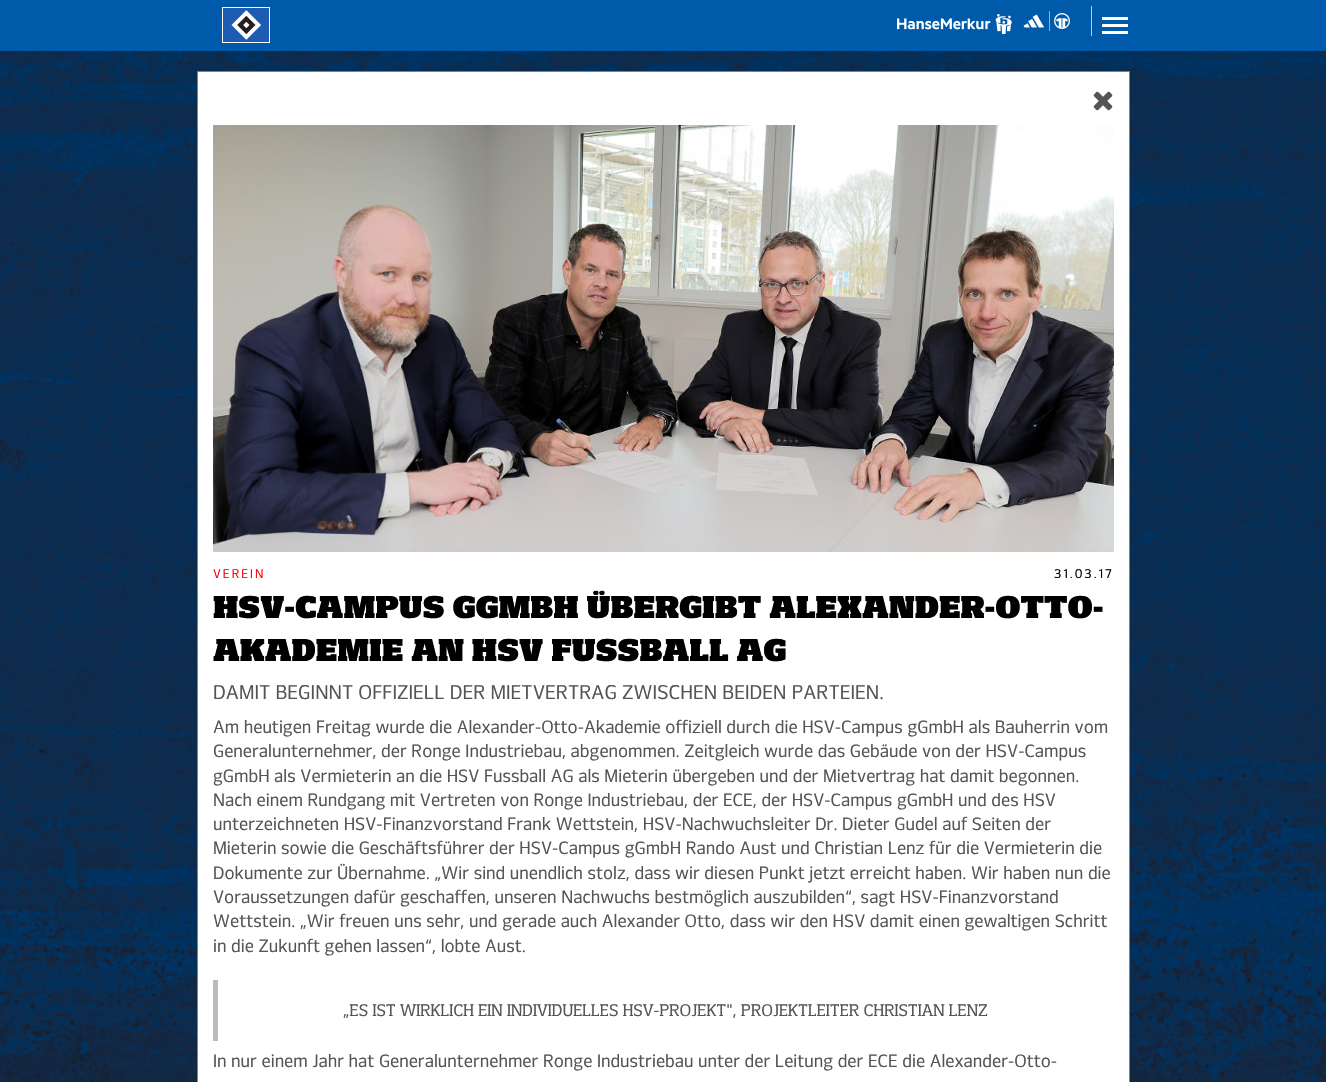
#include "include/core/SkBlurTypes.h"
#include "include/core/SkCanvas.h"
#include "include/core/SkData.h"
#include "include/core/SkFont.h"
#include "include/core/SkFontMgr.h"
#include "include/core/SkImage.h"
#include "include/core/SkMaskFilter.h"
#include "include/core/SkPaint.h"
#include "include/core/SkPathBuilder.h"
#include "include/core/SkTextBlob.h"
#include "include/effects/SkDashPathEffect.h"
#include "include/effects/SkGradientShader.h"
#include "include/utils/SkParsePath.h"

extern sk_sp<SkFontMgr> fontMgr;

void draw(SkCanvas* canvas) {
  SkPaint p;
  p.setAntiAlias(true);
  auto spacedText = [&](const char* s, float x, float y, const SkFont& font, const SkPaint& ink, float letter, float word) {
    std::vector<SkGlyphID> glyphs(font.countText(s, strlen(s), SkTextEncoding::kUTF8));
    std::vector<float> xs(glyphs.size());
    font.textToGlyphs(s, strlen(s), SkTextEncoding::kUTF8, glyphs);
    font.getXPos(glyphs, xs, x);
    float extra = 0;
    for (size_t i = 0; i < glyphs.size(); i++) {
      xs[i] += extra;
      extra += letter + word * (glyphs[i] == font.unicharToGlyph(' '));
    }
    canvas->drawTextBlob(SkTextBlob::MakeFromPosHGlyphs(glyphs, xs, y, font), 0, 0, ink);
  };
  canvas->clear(SK_ColorWHITE);
  canvas->drawImageRect(SkImages::DeferredFromEncodedData(SkData::MakeFromFileName("images/1.png")), SkRect::MakeLTRB(0, 51, 1326, 1082), SkSamplingOptions());
  p.setColor(SkColorSetRGB(0, 90, 170));
  canvas->drawRect(SkRect::MakeLTRB(0, 0, 1326, 51), p);
  canvas->drawImageRect(SkImages::DeferredFromEncodedData(SkData::MakeFromFileName("images/2.png")), SkRect::MakeLTRB(222, 7, 270, 43), SkSamplingOptions());
  canvas->drawImageRect(SkImages::DeferredFromEncodedData(SkData::MakeFromFileName("images/3.png")), SkRect::MakeLTRB(897, 14, 1012, 34), SkSamplingOptions());
  p.setColor(SkColorSetRGB(179, 206, 230));
  canvas->drawRect(SkRect::MakeLTRB(1091, 6, 1092, 36), p);
  canvas->drawImageRect(SkImages::DeferredFromEncodedData(SkData::MakeFromFileName("images/4.png")), SkRect::MakeLTRB(1023, 11, 1070, 31), SkSamplingOptions());
  p.setColor(SK_ColorWHITE);
  canvas->drawRect(SkRect::MakeLTRB(1102, 17, 1128, 20), p);
  canvas->drawRect(SkRect::MakeLTRB(1102, 24, 1128, 27), p);
  canvas->drawRect(SkRect::MakeLTRB(1102, 31, 1128, 34), p);
  canvas->drawRect(SkRect::MakeLTRB(197.5f, 71.5f, 1129.5f, 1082.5f), p);
  p.setStyle(SkPaint::kStroke_Style);
  p.setStrokeWidth(1);
  p.setColor(SkColorSetRGB(128, 128, 128));
  canvas->drawRect(SkRect::MakeLTRB(197.5f, 71.5f, 1129.5f, 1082.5f), p);
  canvas->drawImageRect(SkImages::DeferredFromEncodedData(SkData::MakeFromFileName("images/5.png")), SkRect::MakeLTRB(1093, 91, 1113, 111), SkSamplingOptions());
  canvas->drawImageRect(SkImages::DeferredFromEncodedData(SkData::MakeFromFileName("images/6.png")), SkRect::MakeLTRB(213, 125, 1114, 552), SkSamplingOptions());
  p.setStyle(SkPaint::kFill_Style);
  p.setColor(SkColorSetRGB(187, 187, 187));
  canvas->drawRect(SkRect::MakeLTRB(213, 980, 218, 1041), p);
  SkFont font1(fontMgr->matchFamilyStyle("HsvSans", SkFontStyle::Normal()), 12);
  font1.setSubpixel(true);
  p.setColor(SkColorSetRGB(255, 2, 2));
  spacedText("VEREIN", 213, 578, font1, p, 2, 0);
  p.setColor(SK_ColorBLACK);
  spacedText("31.03.17", 1054, 578, font1, p, 2, 0);
  SkFont font2(fontMgr->matchFamilyStyle("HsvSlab", SkFontStyle(800, SkFontStyle::kNormal_Width, SkFontStyle::kUpright_Slant)), 30);
  font2.setSubpixel(true);
  canvas->drawString("HSV-CAMPUS GGMBH ÜBERGIBT ALEXANDER-OTTO-", 213, 618, font2, p);
  canvas->drawString("AKADEMIE AN HSV FUSSBALL AG", 213, 661, font2, p);
  SkFont font3(fontMgr->matchFamilyStyle("HsvSans", SkFontStyle::Normal()), 19);
  font3.setSubpixel(true);
  p.setColor(SkColorSetRGB(85, 85, 85));
  canvas->drawString("DAMIT BEGINNT OFFIZIELL DER MIETVERTRAG ZWISCHEN BEIDEN PARTEIEN.", 213, 699, font3, p);
  SkFont font4(fontMgr->matchFamilyStyle("HsvSans", SkFontStyle::Normal()), 17);
  font4.setSubpixel(true);
  canvas->drawString("Am heutigen Freitag wurde die Alexander-Otto-Akademie offiziell durch die HSV-Campus gGmbH als Bauherrin vom", 213, 733, font4, p);
  canvas->drawString("Generalunternehmer, der Ronge Industriebau, abgenommen. Zeitgleich wurde das Gebäude von der HSV-Campus", 213, 757, font4, p);
  canvas->drawString("gGmbH als Vermieterin an die HSV Fussball AG als Mieterin übergeben und der Mietvertrag hat damit begonnen.", 213, 782, font4, p);
  canvas->drawString("Nach einem Rundgang mit Vertreten von Ronge Industriebau, der ECE, der HSV-Campus gGmbH und des HSV", 213, 806, font4, p);
  canvas->drawString("unterzeichneten HSV-Finanzvorstand Frank Wettstein, HSV-Nachwuchsleiter Dr. Dieter Gudel auf Seiten der", 213, 830, font4, p);
  canvas->drawString("Mieterin sowie die Geschäftsführer der HSV-Campus gGmbH Rando Aust und Christian Lenz für die Vermieterin die", 213, 854, font4, p);
  canvas->drawString("Dokumente zur Übernahme. „Wir sind unendlich stolz, dass wir diesen Punkt jetzt erreicht haben. Wir haben nun die", 213, 879, font4, p);
  canvas->drawString("Voraussetzungen dafür geschaffen, unseren Nachwuchs bestmöglich auszubilden“, sagt HSV-Finanzvorstand", 213, 903, font4, p);
  canvas->drawString("Wettstein. „Wir freuen uns sehr, und gerade auch Alexander Otto, dass wir den HSV damit einen gewaltigen Schritt", 213, 927, font4, p);
  canvas->drawString("in die Zukunft gehen lassen“, lobte Aust.", 213, 952, font4, p);
  SkFont font5(fontMgr->matchFamilyStyle("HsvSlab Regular", SkFontStyle::Normal()), 16);
  font5.setSubpixel(true);
  canvas->drawString("„ES IST WIRKLICH EIN INDIVIDUELLES HSV-PROJEKT\", PROJEKTLEITER CHRISTIAN LENZ", 343, 1016, font5, p);
  canvas->drawString("In nur einem Jahr hat Generalunternehmer Ronge Industriebau unter der Leitung der ECE die Alexander-Otto-", 213, 1067, font4, p);
}
